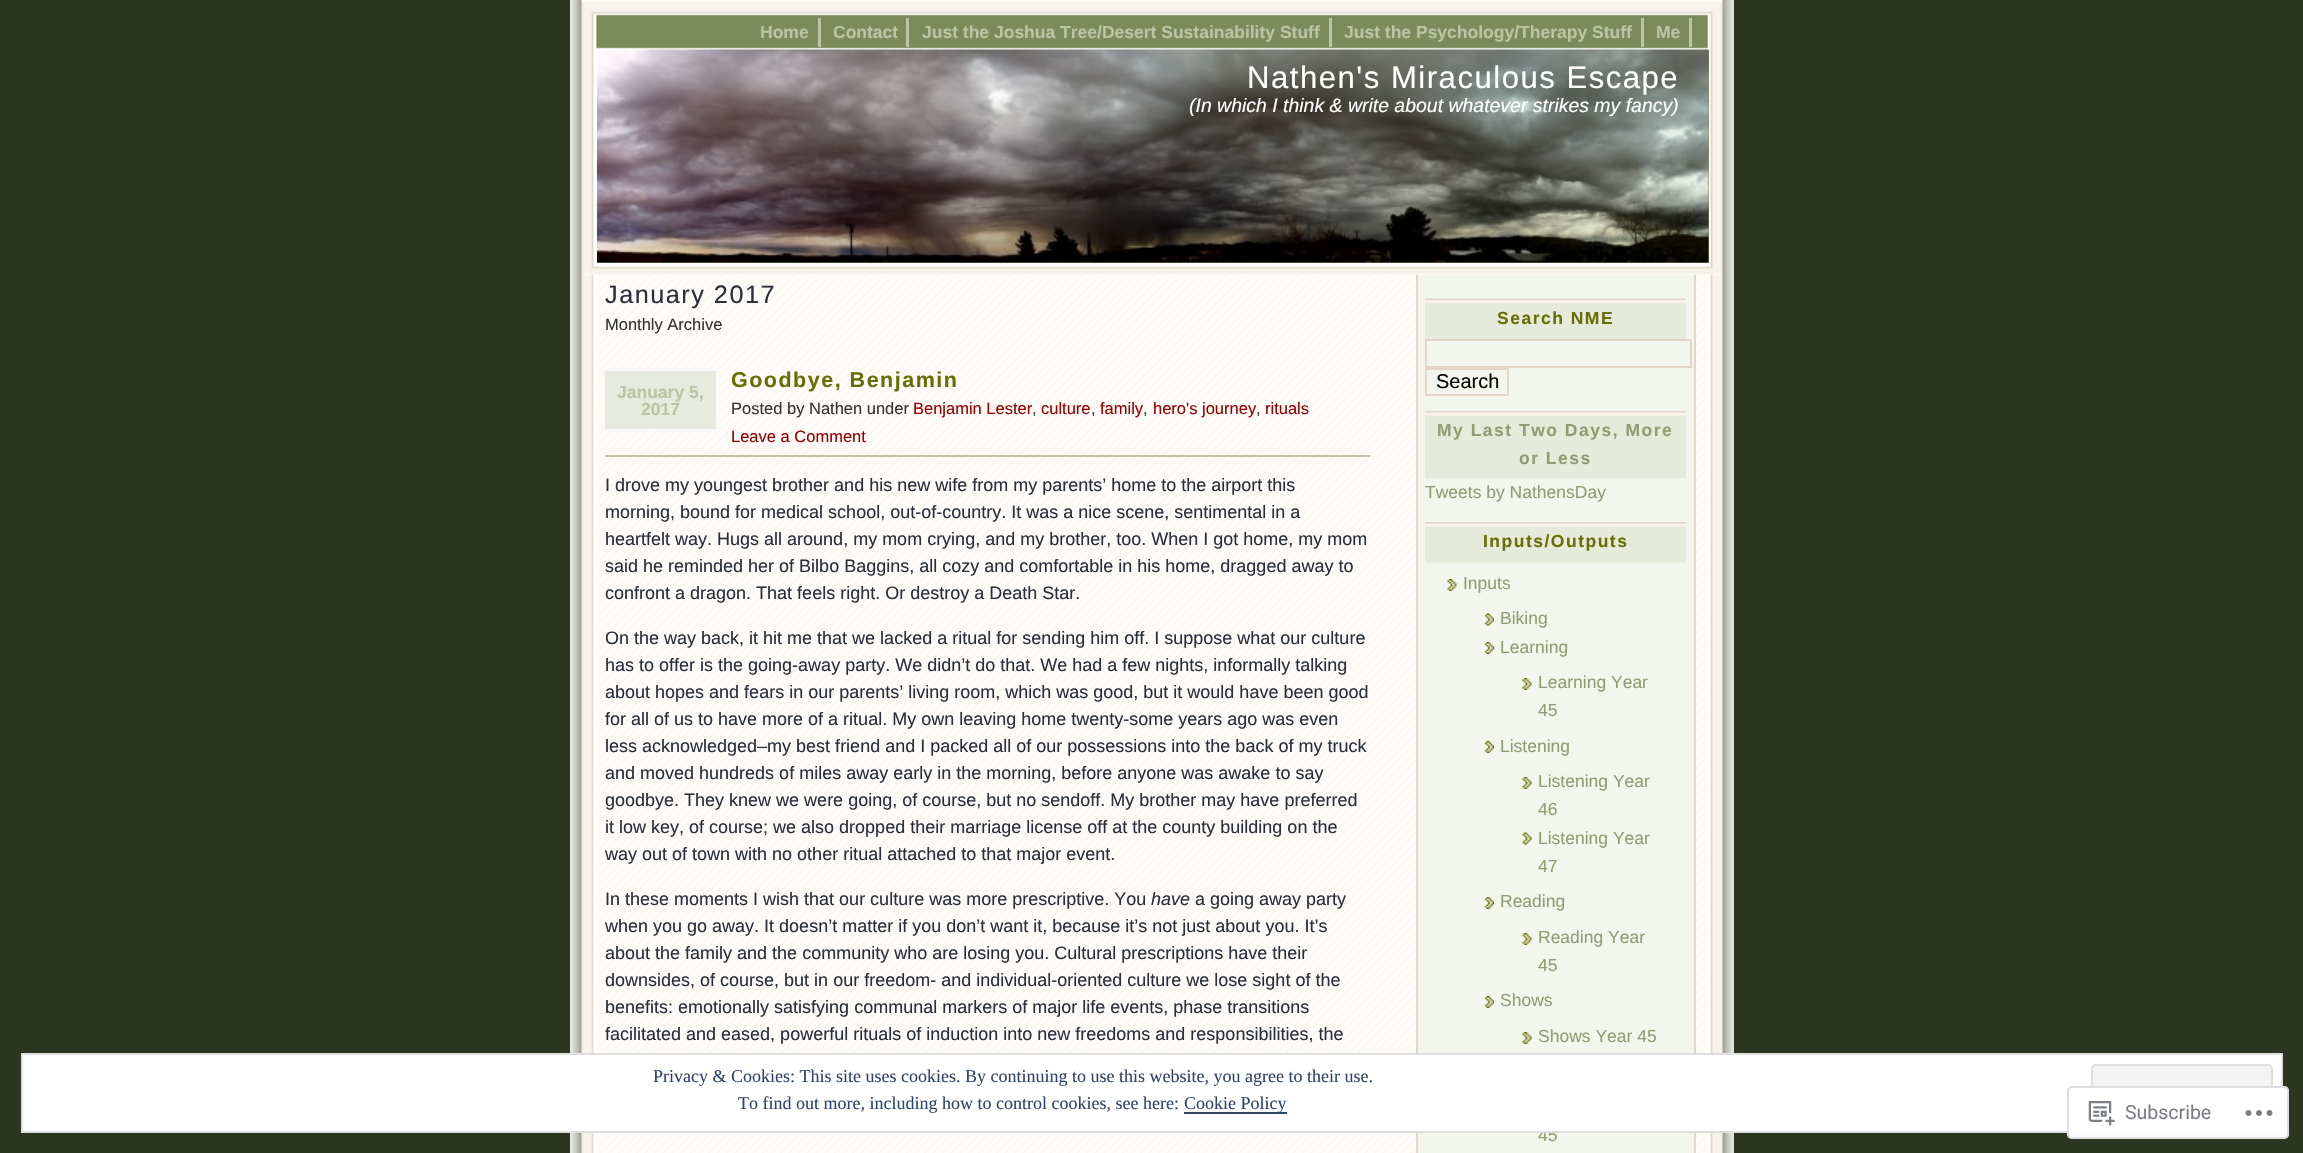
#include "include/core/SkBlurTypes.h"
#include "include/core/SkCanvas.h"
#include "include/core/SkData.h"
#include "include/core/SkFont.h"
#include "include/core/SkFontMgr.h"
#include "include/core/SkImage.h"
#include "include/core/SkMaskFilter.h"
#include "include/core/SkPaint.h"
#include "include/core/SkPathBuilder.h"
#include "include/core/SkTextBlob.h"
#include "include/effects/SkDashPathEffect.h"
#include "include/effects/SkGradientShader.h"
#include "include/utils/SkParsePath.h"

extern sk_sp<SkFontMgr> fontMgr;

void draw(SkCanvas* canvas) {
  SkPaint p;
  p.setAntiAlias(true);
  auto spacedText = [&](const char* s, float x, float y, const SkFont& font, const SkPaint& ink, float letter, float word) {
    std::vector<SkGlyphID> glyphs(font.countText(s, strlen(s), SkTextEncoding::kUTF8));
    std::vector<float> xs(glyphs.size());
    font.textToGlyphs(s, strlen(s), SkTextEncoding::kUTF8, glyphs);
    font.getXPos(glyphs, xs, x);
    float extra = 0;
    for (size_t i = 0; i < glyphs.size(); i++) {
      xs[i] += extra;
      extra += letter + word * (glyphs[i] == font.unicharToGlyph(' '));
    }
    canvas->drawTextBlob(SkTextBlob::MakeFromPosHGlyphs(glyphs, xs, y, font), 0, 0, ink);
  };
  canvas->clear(SkColorSetRGB(44, 53, 32));
  canvas->drawImageRect(SkImages::DeferredFromEncodedData(SkData::MakeFromFileName("images/1.png")), SkRect::MakeLTRB(570, 0, 1734, 1153), SkSamplingOptions());
  p.setColor(SK_ColorWHITE);
  canvas->drawRect(SkRect::MakeLTRB(582, 0, 1722, 275), p);
  canvas->drawImageRect(SkImages::DeferredFromEncodedData(SkData::MakeFromFileName("images/2.png")), SkRect::MakeLTRB(582, 1, 1722, 275), SkSamplingOptions());
  p.setColor(SkColorSetRGB(187, 196, 163));
  canvas->drawRect(SkRect::MakeLTRB(818, 18, 821, 47), p);
  canvas->drawRect(SkRect::MakeLTRB(906, 18, 909, 47), p);
  canvas->drawRect(SkRect::MakeLTRB(1329, 18, 1332, 47), p);
  canvas->drawRect(SkRect::MakeLTRB(1641, 18, 1644, 47), p);
  canvas->drawRect(SkRect::MakeLTRB(1689, 18, 1692, 47), p);
  p.setColor(SkColorSetRGB(125, 139, 90));
  canvas->drawRect(SkRect::MakeLTRB(597, 50, 1709, 263), p);
  canvas->drawImageRect(SkImages::DeferredFromEncodedData(SkData::MakeFromFileName("images/3.png")), SkRect::MakeLTRB(597, 49, 1709, 263), SkSamplingOptions());
  canvas->drawImageRect(SkImages::DeferredFromEncodedData(SkData::MakeFromFileName("images/4.png")), SkRect::MakeLTRB(597, 275, 1707, 1153), SkSamplingOptions());
  p.setColor(SkColorSetRGB(231, 235, 222));
  canvas->drawRect(SkRect::MakeLTRB(605, 371, 716, 429), p);
  p.setColor(SkColorSetRGB(187, 196, 163));
  canvas->drawRect(SkRect::MakeLTRB(605, 455, 1370, 457), p);
  p.setColor(SkColorSetRGB(243, 246, 237));
  canvas->drawRect(SkRect::MakeLTRB(1418, 275, 1694, 1153), p);
  p.setColor(SkColorSetRGB(225, 214, 198));
  canvas->drawRect(SkRect::MakeLTRB(1694, 275, 1696, 1153), p);
  canvas->drawRect(SkRect::MakeLTRB(1416, 275, 1418, 1153), p);
  canvas->drawImageRect(SkImages::DeferredFromEncodedData(SkData::MakeFromFileName("images/5.png")), SkRect::MakeLTRB(1425, 298, 1686, 339), SkSamplingOptions());
  p.setStyle(SkPaint::kStroke_Style);
  p.setStrokeWidth(2);
  canvas->drawRect(SkRect::MakeLTRB(1426, 340, 1691, 367), p);
  canvas->drawRect(SkRect::MakeLTRB(1426, 369, 1508, 395), p);
  canvas->drawImageRect(SkImages::DeferredFromEncodedData(SkData::MakeFromFileName("images/6.png")), SkRect::MakeLTRB(1425, 411, 1686, 479), SkSamplingOptions());
  canvas->drawImageRect(SkImages::DeferredFromEncodedData(SkData::MakeFromFileName("images/7.png")), SkRect::MakeLTRB(1425, 522, 1686, 563), SkSamplingOptions());
  canvas->drawImageRect(SkImages::DeferredFromEncodedData(SkData::MakeFromFileName("images/8.png")), SkRect::MakeLTRB(1447, 579, 1457, 591), SkSamplingOptions());
  canvas->drawImageRect(SkImages::DeferredFromEncodedData(SkData::MakeFromFileName("images/9.png")), SkRect::MakeLTRB(1485, 613, 1494, 626), SkSamplingOptions());
  canvas->drawImageRect(SkImages::DeferredFromEncodedData(SkData::MakeFromFileName("images/10.png")), SkRect::MakeLTRB(1485, 642, 1494, 654), SkSamplingOptions());
  canvas->drawImageRect(SkImages::DeferredFromEncodedData(SkData::MakeFromFileName("images/11.png")), SkRect::MakeLTRB(1522, 678, 1532, 690), SkSamplingOptions());
  canvas->drawImageRect(SkImages::DeferredFromEncodedData(SkData::MakeFromFileName("images/10.png")), SkRect::MakeLTRB(1485, 741, 1494, 753), SkSamplingOptions());
  canvas->drawImageRect(SkImages::DeferredFromEncodedData(SkData::MakeFromFileName("images/11.png")), SkRect::MakeLTRB(1522, 777, 1532, 789), SkSamplingOptions());
  canvas->drawImageRect(SkImages::DeferredFromEncodedData(SkData::MakeFromFileName("images/12.png")), SkRect::MakeLTRB(1522, 832, 1532, 845), SkSamplingOptions());
  canvas->drawImageRect(SkImages::DeferredFromEncodedData(SkData::MakeFromFileName("images/10.png")), SkRect::MakeLTRB(1485, 897, 1494, 909), SkSamplingOptions());
  canvas->drawImageRect(SkImages::DeferredFromEncodedData(SkData::MakeFromFileName("images/11.png")), SkRect::MakeLTRB(1522, 933, 1532, 945), SkSamplingOptions());
  canvas->drawImageRect(SkImages::DeferredFromEncodedData(SkData::MakeFromFileName("images/10.png")), SkRect::MakeLTRB(1485, 996, 1494, 1008), SkSamplingOptions());
  canvas->drawImageRect(SkImages::DeferredFromEncodedData(SkData::MakeFromFileName("images/11.png")), SkRect::MakeLTRB(1522, 1032, 1532, 1044), SkSamplingOptions());
  SkFont font1(fontMgr->matchFamilyStyle("Liberation Sans", SkFontStyle::Bold()), 17.5f);
  font1.setSubpixel(true);
  p.setStyle(SkPaint::kFill_Style);
  p.setColor(SkColorSetRGB(187, 196, 163));
  canvas->drawString("Home", 760, 38, font1, p);
  canvas->drawString("Contact", 833, 38, font1, p);
  canvas->drawString("Just the Joshua Tree/Desert Sustainability Stuff", 922, 38, font1, p);
  canvas->drawString("Just the Psychology/Therapy Stuff", 1344, 38, font1, p);
  canvas->drawString("Me", 1656, 38, font1, p);
  SkFont font2(fontMgr->matchFamilyStyle("Liberation Sans", SkFontStyle::Normal()), 31.1f);
  font2.setSubpixel(true);
  p.setColor(SK_ColorWHITE);
  spacedText("Nathen's Miraculous Escape", 1247, 88, font2, p, 1.5f, 0);
  SkFont font3(fontMgr->matchFamilyStyle("Liberation Sans", SkFontStyle::Italic()), 19.45f);
  font3.setSubpixel(true);
  canvas->drawString("(In which I think & write about whatever strikes my fancy)", 1189, 112, font3, p);
  SkFont font4(fontMgr->matchFamilyStyle("Liberation Sans", SkFontStyle::Normal()), 25.25f);
  font4.setSubpixel(true);
  p.setColor(SkColorSetRGB(41, 48, 59));
  spacedText("January 2017", 605, 303, font4, p, 1.5f, 0);
  SkFont font5(fontMgr->matchFamilyStyle("Liberation Sans", SkFontStyle::Normal()), 16.5f);
  font5.setSubpixel(true);
  p.setColor(SkColorSetRGB(51, 51, 51));
  canvas->drawString("Monthly Archive", 605, 330, font5, p);
  p.setColor(SkColorSetRGB(187, 196, 163));
  canvas->drawString("January 5,", 617, 398, font1, p);
  canvas->drawString("2017", 641, 415, font1, p);
  SkFont font6(fontMgr->matchFamilyStyle("Liberation Sans", SkFontStyle::Bold()), 21.5f);
  font6.setSubpixel(true);
  p.setColor(SkColorSetRGB(103, 110, 4));
  spacedText("Goodbye, Benjamin", 731, 387, font6, p, 1.5f, 0);
  p.setColor(SkColorSetRGB(51, 51, 51));
  canvas->drawString("Posted by Nathen under", 731, 414, font5, p);
  p.setColor(SkColorSetRGB(153, 0, 0));
  canvas->drawString("Benjamin Lester", 913, 414, font5, p);
  p.setColor(SkColorSetRGB(51, 51, 51));
  canvas->drawString(",", 1032, 414, font5, p);
  p.setColor(SkColorSetRGB(153, 0, 0));
  canvas->drawString("culture", 1041, 414, font5, p);
  p.setColor(SkColorSetRGB(51, 51, 51));
  canvas->drawString(",", 1091, 414, font5, p);
  p.setColor(SkColorSetRGB(153, 0, 0));
  canvas->drawString("family", 1100, 414, font5, p);
  p.setColor(SkColorSetRGB(51, 51, 51));
  canvas->drawString(",", 1143, 414, font5, p);
  p.setColor(SkColorSetRGB(153, 0, 0));
  canvas->drawString("hero's journey", 1153, 414, font5, p);
  p.setColor(SkColorSetRGB(51, 51, 51));
  canvas->drawString(",", 1256, 414, font5, p);
  p.setColor(SkColorSetRGB(153, 0, 0));
  canvas->drawString("rituals", 1265, 414, font5, p);
  canvas->drawString("Leave a Comment", 731, 442, font5, p);
  SkFont font7(fontMgr->matchFamilyStyle("Liberation Sans", SkFontStyle::Normal()), 18);
  font7.setSubpixel(true);
  p.setColor(SkColorSetRGB(41, 48, 59));
  canvas->drawString("I drove my youngest brother and his new wife from my parents’ home to the airport this", 605, 491, font7, p);
  canvas->drawString("morning, bound for medical school, out-of-country. It was a nice scene, sentimental in a", 605, 518, font7, p);
  canvas->drawString("heartfelt way. Hugs all around, my mom crying, and my brother, too. When I got home, my mom", 605, 545, font7, p);
  canvas->drawString("said he reminded her of Bilbo Baggins, all cozy and comfortable in his home, dragged away to", 605, 572, font7, p);
  canvas->drawString("confront a dragon. That feels right. Or destroy a Death Star.", 605, 599, font7, p);
  canvas->drawString("On the way back, it hit me that we lacked a ritual for sending him off. I suppose what our culture", 605, 644, font7, p);
  canvas->drawString("has to offer is the going-away party. We didn’t do that. We had a few nights, informally talking", 605, 671, font7, p);
  canvas->drawString("about hopes and fears in our parents’ living room, which was good, but it would have been good", 605, 698, font7, p);
  canvas->drawString("for all of us to have more of a ritual. My own leaving home twenty-some years ago was even", 605, 725, font7, p);
  canvas->drawString("less acknowledged–my best friend and I packed all of our possessions into the back of my truck", 605, 752, font7, p);
  canvas->drawString("and moved hundreds of miles away early in the morning, before anyone was awake to say", 605, 779, font7, p);
  canvas->drawString("goodbye. They knew we were going, of course, but no sendoff. My brother may have preferred", 605, 806, font7, p);
  canvas->drawString("it low key, of course; we also dropped their marriage license off at the county building on the", 605, 833, font7, p);
  canvas->drawString("way out of town with no other ritual attached to that major event.", 605, 860, font7, p);
  canvas->drawString("In these moments I wish that our culture was more prescriptive. You", 605, 905, font7, p);
  SkFont font8(fontMgr->matchFamilyStyle("Liberation Sans", SkFontStyle::Italic()), 18);
  font8.setSubpixel(true);
  canvas->drawString("have", 1151, 905, font8, p);
  canvas->drawString("a going away party", 1195, 905, font7, p);
  canvas->drawString("when you go away. It doesn’t matter if you don’t want it, because it’s not just about you. It’s", 605, 932, font7, p);
  canvas->drawString("about the family and the community who are losing you. Cultural prescriptions have their", 605, 959, font7, p);
  canvas->drawString("downsides, of course, but in our freedom- and individual-oriented culture we lose sight of the", 605, 986, font7, p);
  canvas->drawString("benefits: emotionally satisfying communal markers of major life events, phase transitions", 605, 1013, font7, p);
  canvas->drawString("facilitated and eased, powerful rituals of induction into new freedoms and responsibilities, the", 605, 1040, font7, p);
  p.setColor(SkColorSetRGB(103, 110, 4));
  spacedText("Search NME", 1497, 324, font1, p, 1.5f, 0);
  SkFont font9(fontMgr->matchFamilyStyle("Liberation Sans", SkFontStyle::Normal()), 20);
  font9.setSubpixel(true);
  p.setColor(SK_ColorBLACK);
  canvas->drawString("Search", 1436, 388, font9, p);
  p.setColor(SkColorSetRGB(144, 157, 115));
  spacedText("My Last Two Days, More", 1437, 436, font1, p, 1.5f, 0);
  spacedText("or Less", 1519, 464, font1, p, 1.5f, 0);
  SkFont font10(fontMgr->matchFamilyStyle("Liberation Sans", SkFontStyle::Normal()), 17.5f);
  font10.setSubpixel(true);
  canvas->drawString("Tweets by NathensDay", 1425, 498, font10, p);
  p.setColor(SkColorSetRGB(103, 110, 4));
  spacedText("Inputs/Outputs", 1483, 547, font1, p, 1.5f, 0);
  p.setColor(SkColorSetRGB(144, 157, 115));
  canvas->drawString("Inputs", 1463, 589, font10, p);
  canvas->drawString("Biking", 1500, 624, font10, p);
  canvas->drawString("Learning", 1500, 653, font10, p);
  canvas->drawString("Learning Year", 1538, 688, font10, p);
  canvas->drawString("45", 1538, 716, font10, p);
  canvas->drawString("Listening", 1500, 752, font10, p);
  canvas->drawString("Listening Year", 1538, 787, font10, p);
  canvas->drawString("46", 1538, 815, font10, p);
  canvas->drawString("Listening Year", 1538, 844, font10, p);
  canvas->drawString("47", 1538, 872, font10, p);
  canvas->drawString("Reading", 1500, 907, font10, p);
  canvas->drawString("Reading Year", 1538, 943, font10, p);
  canvas->drawString("45", 1538, 971, font10, p);
  canvas->drawString("Shows", 1500, 1006, font10, p);
  canvas->drawString("Shows Year 45", 1538, 1042, font10, p);
  canvas->drawString("45", 1538, 1141, font10, p);
  p.setColor(SK_ColorWHITE);
  canvas->drawRect(SkRect::MakeLTRB(22, 1054, 2282, 1132), p);
  p.setStyle(SkPaint::kStroke_Style);
  p.setColor(SkColorSetRGB(222, 222, 222));
  canvas->drawRect(SkRect::MakeLTRB(22, 1054, 2282, 1132), p);
  SkFont font11(fontMgr->matchFamilyStyle("Liberation Serif", SkFontStyle::Normal()), 18);
  font11.setSubpixel(true);
  p.setStyle(SkPaint::kFill_Style);
  p.setColor(SkColorSetRGB(46, 68, 103));
  canvas->drawString("Privacy & Cookies: This site uses cookies. By continuing to use this website, you agree to their use.", 653, 1082, font11, p);
  p.setColor(SkColorSetRGB(243, 243, 243));
  canvas->drawRoundRect(SkRect::MakeLTRB(2092, 1065, 2272, 1121), 4, 4, p);
  p.setStyle(SkPaint::kStroke_Style);
  p.setColor(SkColorSetRGB(222, 222, 222));
  canvas->drawRoundRect(SkRect::MakeLTRB(2092, 1065, 2272, 1121), 4, 4, p);
  p.setStyle(SkPaint::kFill_Style);
  p.setColor(SkColorSetARGB(250, 255, 255, 255));
  canvas->drawRoundRect(SkRect::MakeLTRB(2067, 1086, 2289, 1139), 5, 5, p);
  p.setStyle(SkPaint::kStroke_Style);
  p.setColor(SkColorSetARGB(250, 220, 220, 222));
  canvas->drawRoundRect(SkRect::MakeLTRB(2068, 1087, 2288, 1138), 4, 4, p);
  canvas->drawImageRect(SkImages::DeferredFromEncodedData(SkData::MakeFromFileName("images/14.png")), SkRect::MakeLTRB(2245, 1110, 2273, 1116), SkSamplingOptions());
  canvas->drawImageRect(SkImages::DeferredFromEncodedData(SkData::MakeFromFileName("images/13.png")), SkRect::MakeLTRB(2088, 1101, 2115, 1126), SkSamplingOptions());
  SkFont font12(fontMgr->matchFamilyStyle("Roboto", SkFontStyle::Normal()), 19.5f);
  font12.setSubpixel(true);
  p.setStyle(SkPaint::kFill_Style);
  p.setColor(SkColorSetRGB(122, 126, 132));
  canvas->drawString("Subscribe", 2125, 1119, font12, p);
  p.setColor(SkColorSetRGB(46, 68, 103));
  canvas->drawString("To find out more, including how to control cookies, see here:", 738, 1109, font11, p);
  canvas->drawRect(SkRect::MakeLTRB(1184, 1112, 1287, 1114), p);
  canvas->drawString("Cookie Policy", 1184, 1109, font11, p);
}
